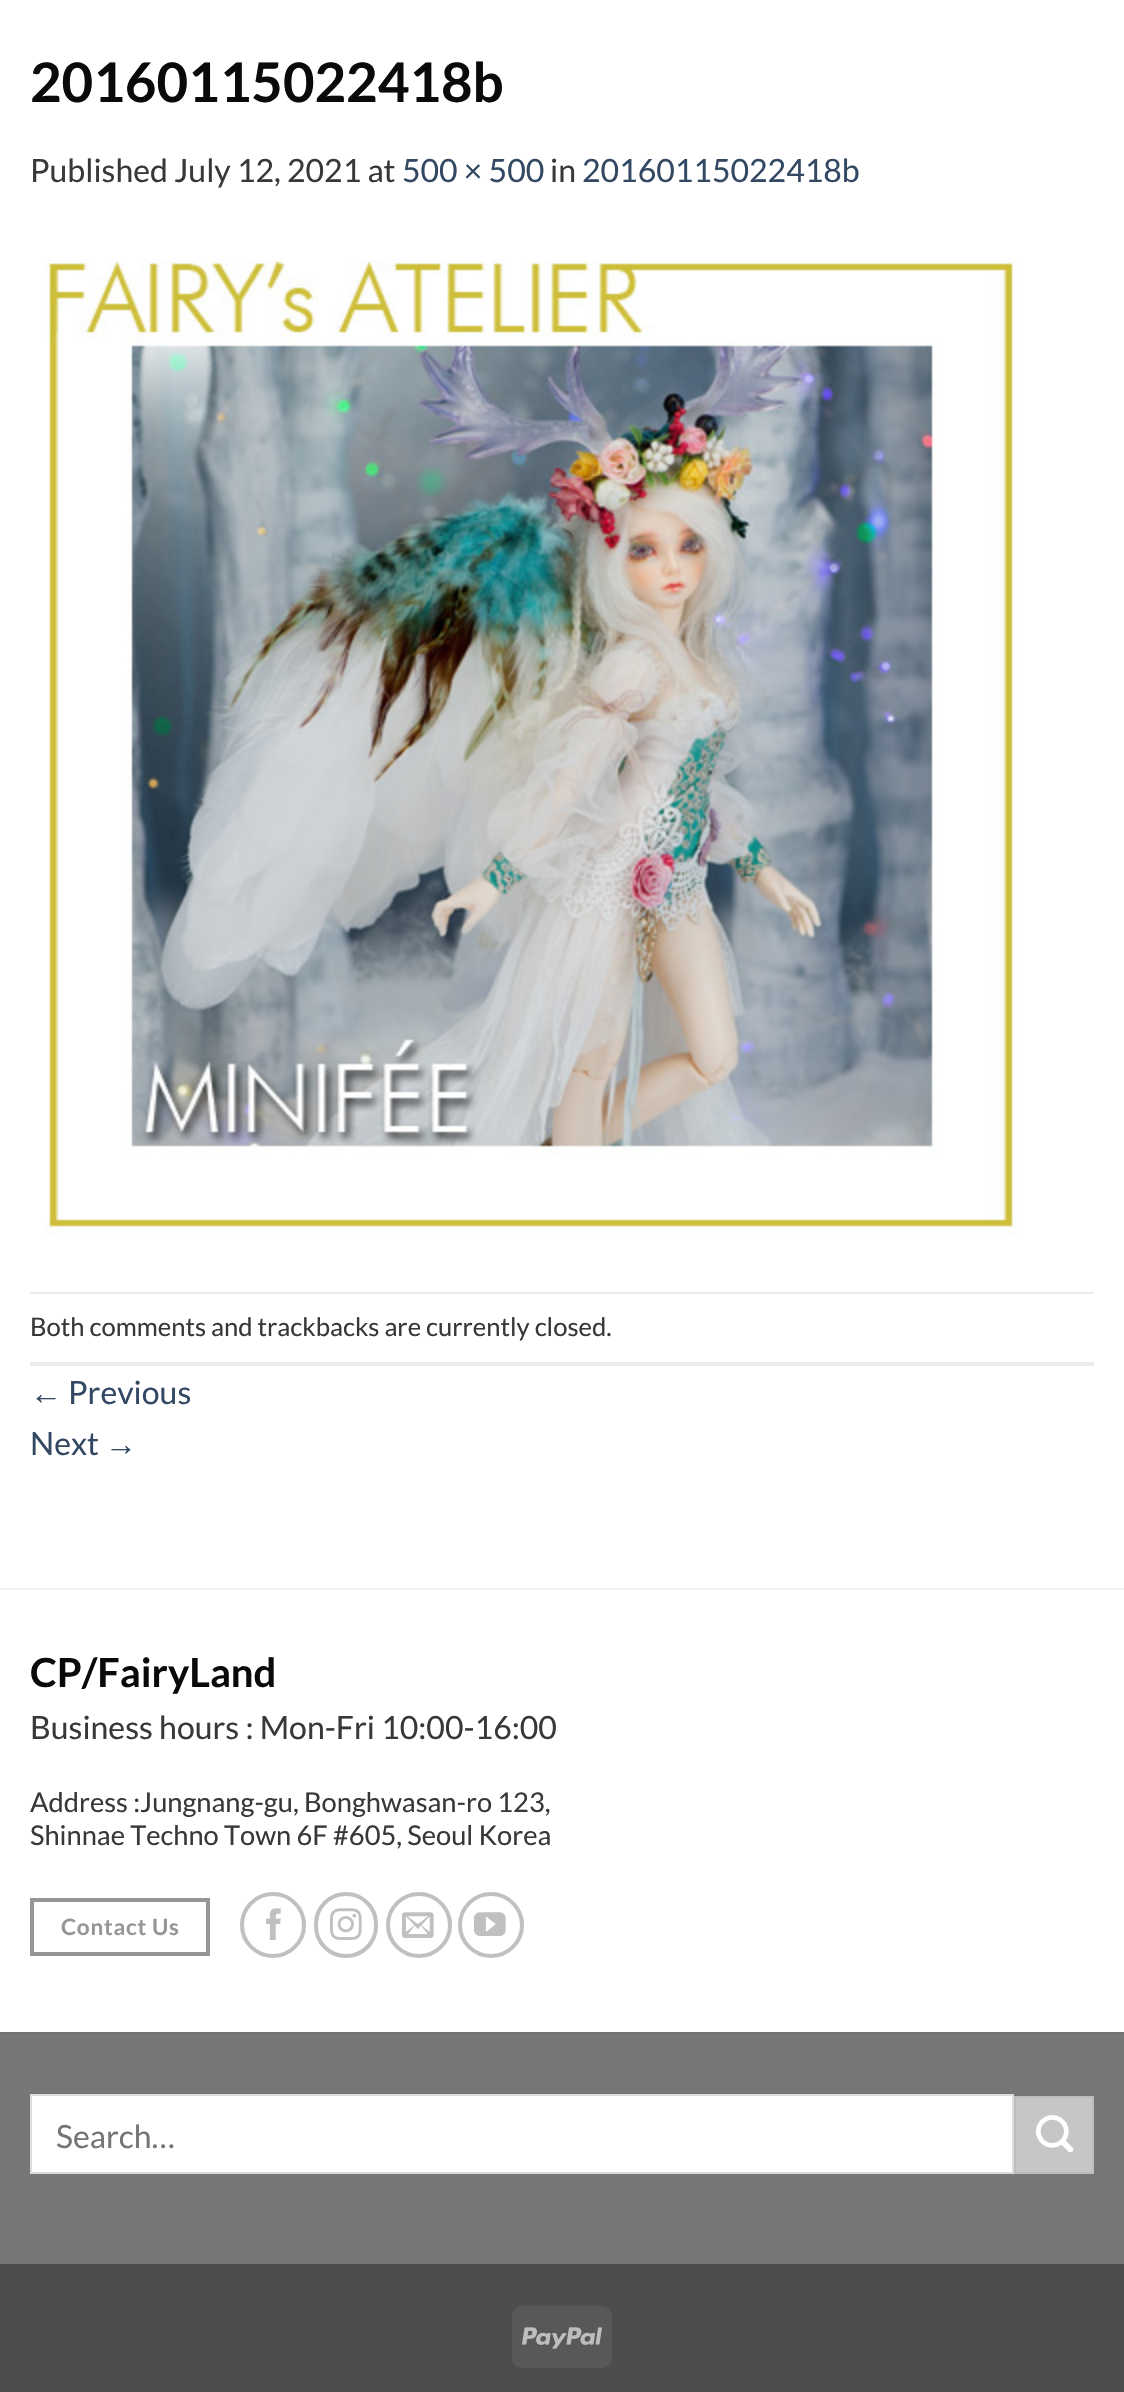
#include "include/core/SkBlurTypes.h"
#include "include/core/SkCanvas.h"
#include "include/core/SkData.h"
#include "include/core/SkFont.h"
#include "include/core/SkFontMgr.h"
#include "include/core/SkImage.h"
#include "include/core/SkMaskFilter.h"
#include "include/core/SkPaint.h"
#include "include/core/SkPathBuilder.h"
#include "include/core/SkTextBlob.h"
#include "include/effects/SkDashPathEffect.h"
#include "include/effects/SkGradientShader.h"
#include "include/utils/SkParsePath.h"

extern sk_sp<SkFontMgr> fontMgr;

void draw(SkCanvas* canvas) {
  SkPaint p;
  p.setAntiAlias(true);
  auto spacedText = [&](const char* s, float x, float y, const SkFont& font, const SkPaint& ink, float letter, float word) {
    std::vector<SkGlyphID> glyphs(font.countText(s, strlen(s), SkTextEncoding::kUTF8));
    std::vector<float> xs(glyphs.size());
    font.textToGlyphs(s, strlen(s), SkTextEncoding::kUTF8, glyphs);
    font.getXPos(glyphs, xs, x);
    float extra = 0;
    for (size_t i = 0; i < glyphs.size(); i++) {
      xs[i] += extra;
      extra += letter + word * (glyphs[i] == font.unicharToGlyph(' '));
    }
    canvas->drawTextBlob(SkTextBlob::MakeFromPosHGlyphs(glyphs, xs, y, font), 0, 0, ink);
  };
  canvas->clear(SK_ColorWHITE);
  canvas->drawImageRect(SkImages::DeferredFromEncodedData(SkData::MakeFromFileName("images/1.png")), SkRect::MakeLTRB(46, 260, 1022, 1236), SkSamplingOptions());
  p.setColor(SkColorSetRGB(236, 236, 236));
  canvas->drawRect(SkRect::MakeLTRB(30, 1292, 1094, 1294), p);
  canvas->drawRect(SkRect::MakeLTRB(30, 1362, 1094, 1366), p);
  p.setColor(SkColorSetRGB(242, 242, 242));
  canvas->drawRect(SkRect::MakeLTRB(0, 1588, 1124, 1590), p);
  p.setStyle(SkPaint::kStroke_Style);
  p.setStrokeWidth(4);
  p.setColor(SkColorSetRGB(150, 150, 150));
  canvas->drawRect(SkRect::MakeLTRB(32, 1900, 208, 1954), p);
  p.setColor(SkColorSetRGB(192, 192, 192));
  canvas->drawCircle(273, 1925, 31, p);
  canvas->drawImageRect(SkImages::DeferredFromEncodedData(SkData::MakeFromFileName("images/2.png")), SkRect::MakeLTRB(265, 1908, 281, 1940), SkSamplingOptions());
  canvas->drawRoundRect(SkRect::MakeLTRB(316, 1894, 376, 1956), 30, 30, p);
  canvas->drawImageRect(SkImages::DeferredFromEncodedData(SkData::MakeFromFileName("images/3.png")), SkRect::MakeLTRB(330, 1908, 362, 1940), SkSamplingOptions());
  canvas->drawCircle(419, 1925, 31, p);
  canvas->drawImageRect(SkImages::DeferredFromEncodedData(SkData::MakeFromFileName("images/4.png")), SkRect::MakeLTRB(402, 1912, 434, 1938), SkSamplingOptions());
  canvas->drawCircle(491, 1925, 31, p);
  canvas->drawImageRect(SkImages::DeferredFromEncodedData(SkData::MakeFromFileName("images/5.png")), SkRect::MakeLTRB(474, 1912, 506, 1936), SkSamplingOptions());
  p.setStyle(SkPaint::kFill_Style);
  p.setColor(SkColorSetRGB(119, 119, 119));
  canvas->drawRect(SkRect::MakeLTRB(0, 2034, 1124, 2264), p);
  p.setColor(SkColorSetRGB(113, 113, 113));
  canvas->drawRect(SkRect::MakeLTRB(0, 2032, 1124, 2034), p);
  p.setColor(SK_ColorWHITE);
  canvas->drawRect(SkRect::MakeLTRB(31, 2095, 1013, 2173), p);
  p.setStyle(SkPaint::kStroke_Style);
  p.setStrokeWidth(2);
  p.setColor(SkColorSetRGB(221, 221, 221));
  canvas->drawRect(SkRect::MakeLTRB(31, 2095, 1013, 2173), p);
  p.setStyle(SkPaint::kFill_Style);
  p.setColor(SkColorSetRGB(198, 198, 198));
  canvas->drawRect(SkRect::MakeLTRB(1015, 2097, 1093, 2173), p);
  p.setStyle(SkPaint::kStroke_Style);
  p.setColor(SkColorSetRGB(188, 188, 188));
  canvas->drawRect(SkRect::MakeLTRB(1015, 2097, 1093, 2173), p);
  canvas->drawImageRect(SkImages::DeferredFromEncodedData(SkData::MakeFromFileName("images/6.png")), SkRect::MakeLTRB(1036, 2115, 1074, 2153), SkSamplingOptions());
  p.setStyle(SkPaint::kFill_Style);
  p.setColor(SkColorSetRGB(77, 77, 77));
  canvas->drawRect(SkRect::MakeLTRB(0, 2264, 1124, 2392), p);
  p.setColor(SkColorSetRGB(88, 88, 88));
  canvas->drawRoundRect(SkRect::MakeLTRB(512, 2306, 612, 2368), 10, 10, p);
  canvas->drawImageRect(SkImages::DeferredFromEncodedData(SkData::MakeFromFileName("images/7.png")), SkRect::MakeLTRB(522, 2327, 602, 2349), SkSamplingOptions());
  SkFont font1(fontMgr->matchFamilyStyle("Lato", SkFontStyle::Bold()), 54.5f);
  font1.setSubpixel(true);
  p.setColor(SkColorSetRGB(10, 10, 10));
  canvas->drawString("20160115022418b", 30, 102, font1, p);
  SkFont font2(fontMgr->matchFamilyStyle("Lato", SkFontStyle::Normal()), 32);
  font2.setSubpixel(true);
  p.setColor(SkColorSetRGB(56, 56, 56));
  canvas->drawString("Published July 12, 2021 at", 30, 182, font2, p);
  p.setColor(SkColorSetRGB(51, 72, 98));
  canvas->drawString("500 × 500", 402, 182, font2, p);
  p.setColor(SkColorSetRGB(56, 56, 56));
  canvas->drawString("in", 550, 182, font2, p);
  p.setColor(SkColorSetRGB(51, 72, 98));
  canvas->drawString("20160115022418b", 582, 182, font2, p);
  SkFont font3(fontMgr->matchFamilyStyle("Lato", SkFontStyle::Normal()), 25.6f);
  font3.setSubpixel(true);
  p.setColor(SkColorSetRGB(56, 56, 56));
  canvas->drawString("Both comments and trackbacks are currently closed.", 30, 1336, font3, p);
  SkFont font4(fontMgr->matchFamilyStyle("Liberation Sans", SkFontStyle::Normal()), 32);
  font4.setSubpixel(true);
  p.setColor(SkColorSetRGB(51, 72, 98));
  canvas->drawString("←", 30, 1404, font4, p);
  canvas->drawString("Previous", 68, 1404, font2, p);
  canvas->drawString("Next", 30, 1455, font2, p);
  canvas->drawString("→", 105, 1455, font4, p);
  SkFont font5(fontMgr->matchFamilyStyle("Lato", SkFontStyle::Bold()), 40);
  font5.setSubpixel(true);
  p.setColor(SkColorSetRGB(10, 10, 10));
  canvas->drawString("CP/FairyLand", 30, 1687, font5, p);
  p.setColor(SkColorSetRGB(56, 56, 56));
  canvas->drawString("Business hours : Mon-Fri 10:00-16:00", 30, 1739, font2, p);
  SkFont font6(fontMgr->matchFamilyStyle("Lato", SkFontStyle::Normal()), 27.25f);
  font6.setSubpixel(true);
  canvas->drawString("Address :Jungnang-gu, Bonghwasan-ro 123,", 30, 1812, font6, p);
  canvas->drawString("Shinnae Techno Town 6F #605, Seoul Korea", 30, 1845, font6, p);
  SkFont font7(fontMgr->matchFamilyStyle("Lato", SkFontStyle::Bold()), 22.5f);
  font7.setSubpixel(true);
  p.setColor(SkColorSetRGB(150, 150, 150));
  spacedText("Contact Us", 61, 1935, font7, p, 0.75f, 0);
  p.setColor(SkColorSetRGB(117, 117, 117));
  canvas->drawString("Search…", 56, 2148, font2, p);
}
